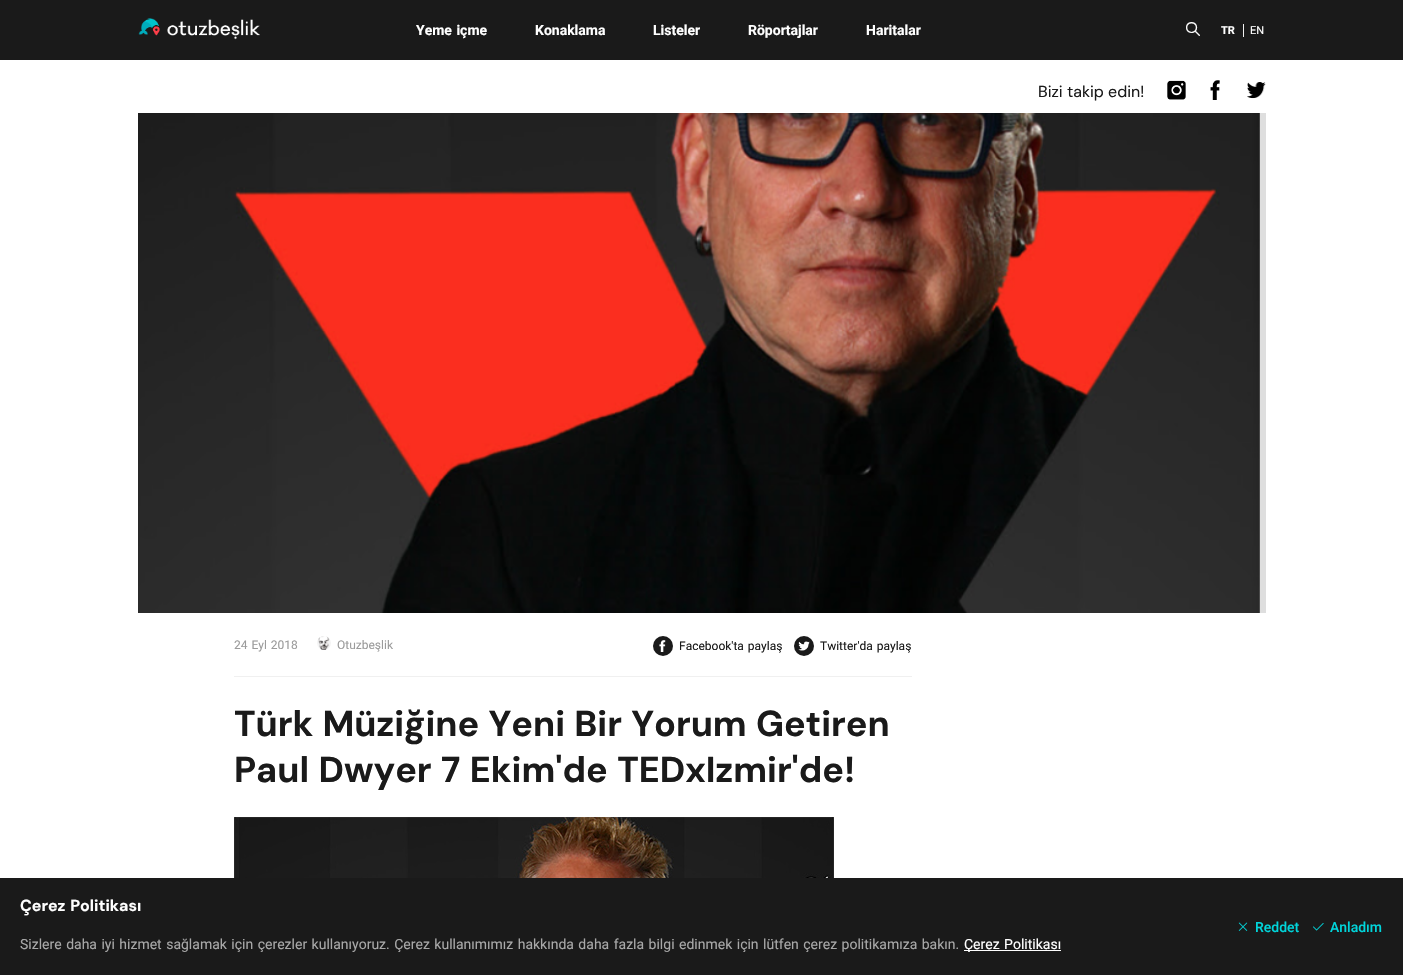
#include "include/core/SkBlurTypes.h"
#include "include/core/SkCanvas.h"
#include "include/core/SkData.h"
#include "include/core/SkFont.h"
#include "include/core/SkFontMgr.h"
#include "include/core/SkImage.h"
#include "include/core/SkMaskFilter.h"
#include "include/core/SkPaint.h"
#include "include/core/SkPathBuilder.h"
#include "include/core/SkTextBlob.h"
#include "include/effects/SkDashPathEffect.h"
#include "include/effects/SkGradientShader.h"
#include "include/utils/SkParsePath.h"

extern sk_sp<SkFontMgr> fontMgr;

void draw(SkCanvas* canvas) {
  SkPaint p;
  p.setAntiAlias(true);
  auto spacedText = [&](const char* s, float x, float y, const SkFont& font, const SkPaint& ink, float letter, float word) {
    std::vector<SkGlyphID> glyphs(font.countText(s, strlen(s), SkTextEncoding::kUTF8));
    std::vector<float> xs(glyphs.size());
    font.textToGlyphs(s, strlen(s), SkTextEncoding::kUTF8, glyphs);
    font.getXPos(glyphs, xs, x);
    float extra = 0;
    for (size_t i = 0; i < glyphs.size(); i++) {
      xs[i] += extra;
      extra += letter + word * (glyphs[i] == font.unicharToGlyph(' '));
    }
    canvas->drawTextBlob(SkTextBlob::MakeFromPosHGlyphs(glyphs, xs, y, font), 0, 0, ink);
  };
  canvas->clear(SK_ColorWHITE);
  p.setColor(SkColorSetRGB(26, 26, 26));
  canvas->drawRect(SkRect::MakeLTRB(0, 0, 1403, 60), p);
  canvas->drawImageRect(SkImages::DeferredFromEncodedData(SkData::MakeFromFileName("images/1.png")), SkRect::MakeLTRB(138, 18, 260, 40), SkSamplingOptions());
  p.setColor(SkColorSetRGB(240, 240, 240));
  canvas->drawRect(SkRect::MakeLTRB(1243, 24, 1244, 37), p);
  canvas->drawImageRect(SkImages::DeferredFromEncodedData(SkData::MakeFromFileName("images/2.png")), SkRect::MakeLTRB(1167, 80, 1186, 100), SkSamplingOptions());
  canvas->drawImageRect(SkImages::DeferredFromEncodedData(SkData::MakeFromFileName("images/3.png")), SkRect::MakeLTRB(1210, 80, 1220, 100), SkSamplingOptions());
  canvas->drawImageRect(SkImages::DeferredFromEncodedData(SkData::MakeFromFileName("images/4.png")), SkRect::MakeLTRB(1247, 82, 1266, 99), SkSamplingOptions());
  canvas->drawImageRect(SkImages::DeferredFromEncodedData(SkData::MakeFromFileName("images/5.png")), SkRect::MakeLTRB(138, 113, 1266, 613), SkSamplingOptions());
  canvas->drawRect(SkRect::MakeLTRB(234, 676, 912, 677), p);
  canvas->drawImageRect(SkImages::DeferredFromEncodedData(SkData::MakeFromFileName("images/6.png")), SkRect::MakeLTRB(317, 636, 331, 650), SkSamplingOptions());
  p.setColor(SkColorSetRGB(26, 26, 26));
  canvas->drawCircle(663, 646, 10, p);
  canvas->drawImageRect(SkImages::DeferredFromEncodedData(SkData::MakeFromFileName("images/7.png")), SkRect::MakeLTRB(659, 640, 666, 652), SkSamplingOptions());
  canvas->drawCircle(804, 646, 10, p);
  canvas->drawImageRect(SkImages::DeferredFromEncodedData(SkData::MakeFromFileName("images/8.png")), SkRect::MakeLTRB(798, 641, 810, 651), SkSamplingOptions());
  canvas->drawImageRect(SkImages::DeferredFromEncodedData(SkData::MakeFromFileName("images/9.png")), SkRect::MakeLTRB(234, 817, 834, 878), SkSamplingOptions());
  canvas->drawRect(SkRect::MakeLTRB(0, 878, 1403, 975), p);
  p.setColor(SK_ColorWHITE);
  canvas->drawRect(SkRect::MakeLTRB(964, 950, 1061, 951), p);
  canvas->drawImageRect(SkImages::DeferredFromEncodedData(SkData::MakeFromFileName("images/10.png")), SkRect::MakeLTRB(1238, 922, 1248, 931), SkSamplingOptions());
  canvas->drawImageRect(SkImages::DeferredFromEncodedData(SkData::MakeFromFileName("images/11.png")), SkRect::MakeLTRB(1313, 923, 1324, 931), SkSamplingOptions());
  SkFont font1(fontMgr->matchFamilyStyle("Roboto", SkFontStyle::Bold()), 14);
  font1.setSubpixel(true);
  spacedText("Yeme içme", 416, 35, font1, p, 0, 1);
  canvas->drawString("Konaklama", 535, 35, font1, p);
  canvas->drawString("Listeler", 653, 35, font1, p);
  canvas->drawString("Röportajlar", 748, 35, font1, p);
  canvas->drawString("Haritalar", 866, 35, font1, p);
  SkFont font2(fontMgr->matchFamilyStyle("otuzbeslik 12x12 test", SkFontStyle::Normal()), 14);
  font2.setSubpixel(true);
  canvas->drawString("A", 1186, 36, font2, p);
  SkFont font3(fontMgr->matchFamilyStyle("Roboto", SkFontStyle::Bold()), 11);
  font3.setSubpixel(true);
  canvas->drawString("TR", 1221, 34, font3, p);
  SkFont font4(fontMgr->matchFamilyStyle("Roboto", SkFontStyle::Normal()), 11);
  font4.setSubpixel(true);
  canvas->drawString("EN", 1250, 34, font4, p);
  SkFont font5(fontMgr->matchFamilyStyle("DM Sans", SkFontStyle::Normal()), 16);
  font5.setSubpixel(true);
  p.setColor(SkColorSetRGB(26, 26, 26));
  canvas->drawString("Bizi takip edin!", 1038, 97, font5, p);
  SkFont font6(fontMgr->matchFamilyStyle("Roboto", SkFontStyle::Normal()), 12);
  font6.setSubpixel(true);
  p.setColor(SkColorSetRGB(155, 155, 155));
  spacedText("24 Eyl 2018", 234, 649, font6, p, 0, 1);
  canvas->drawString("Otuzbeşlik", 337, 649, font6, p);
  p.setColor(SkColorSetRGB(26, 26, 26));
  spacedText("Facebook'ta paylaş", 679, 650, font6, p, 0, 1);
  spacedText("Twitter'da paylaş", 820, 650, font6, p, 0, 1);
  SkFont font7(fontMgr->matchFamilyStyle("DM Sans", SkFontStyle::Bold()), 36);
  font7.setSubpixel(true);
  spacedText("Türk Müziğine Yeni Bir Yorum Getiren", 234, 736, font7, p, 0, 0.75f);
  spacedText("Paul Dwyer", 234, 782, font7, p, 0, 1);
  spacedText("7 Ekim'de TEDxIzmir'de!", 441, 782, font7, p, 0, 1);
  SkFont font8(fontMgr->matchFamilyStyle("DM Sans", SkFontStyle::Bold()), 16);
  font8.setSubpixel(true);
  p.setColor(SK_ColorWHITE);
  spacedText("Çerez Politikası", 20, 911, font8, p, 0, 1);
  SkFont font9(fontMgr->matchFamilyStyle("Roboto", SkFontStyle::Normal()), 14);
  font9.setSubpixel(true);
  p.setColor(SkColorSetRGB(168, 168, 168));
  spacedText("Sizlere daha iyi hizmet sağlamak için çerezler kullanıyoruz. Çerez kullanımımız hakkında daha fazla bilgi edinmek için lütfen çerez politikamıza bakın.", 20, 949, font9, p, 0, 1);
  p.setColor(SK_ColorWHITE);
  spacedText("Çerez Politikası", 964, 949, font9, p, 0, 1);
  SkFont font10(fontMgr->matchFamilyStyle("Roboto", SkFontStyle(500, SkFontStyle::kNormal_Width, SkFontStyle::kUpright_Slant)), 14);
  font10.setSubpixel(true);
  p.setColor(SkColorSetRGB(0, 213, 219));
  canvas->drawString("Reddet", 1255, 932, font10, p);
  canvas->drawString("Anladım", 1330, 932, font10, p);
}
